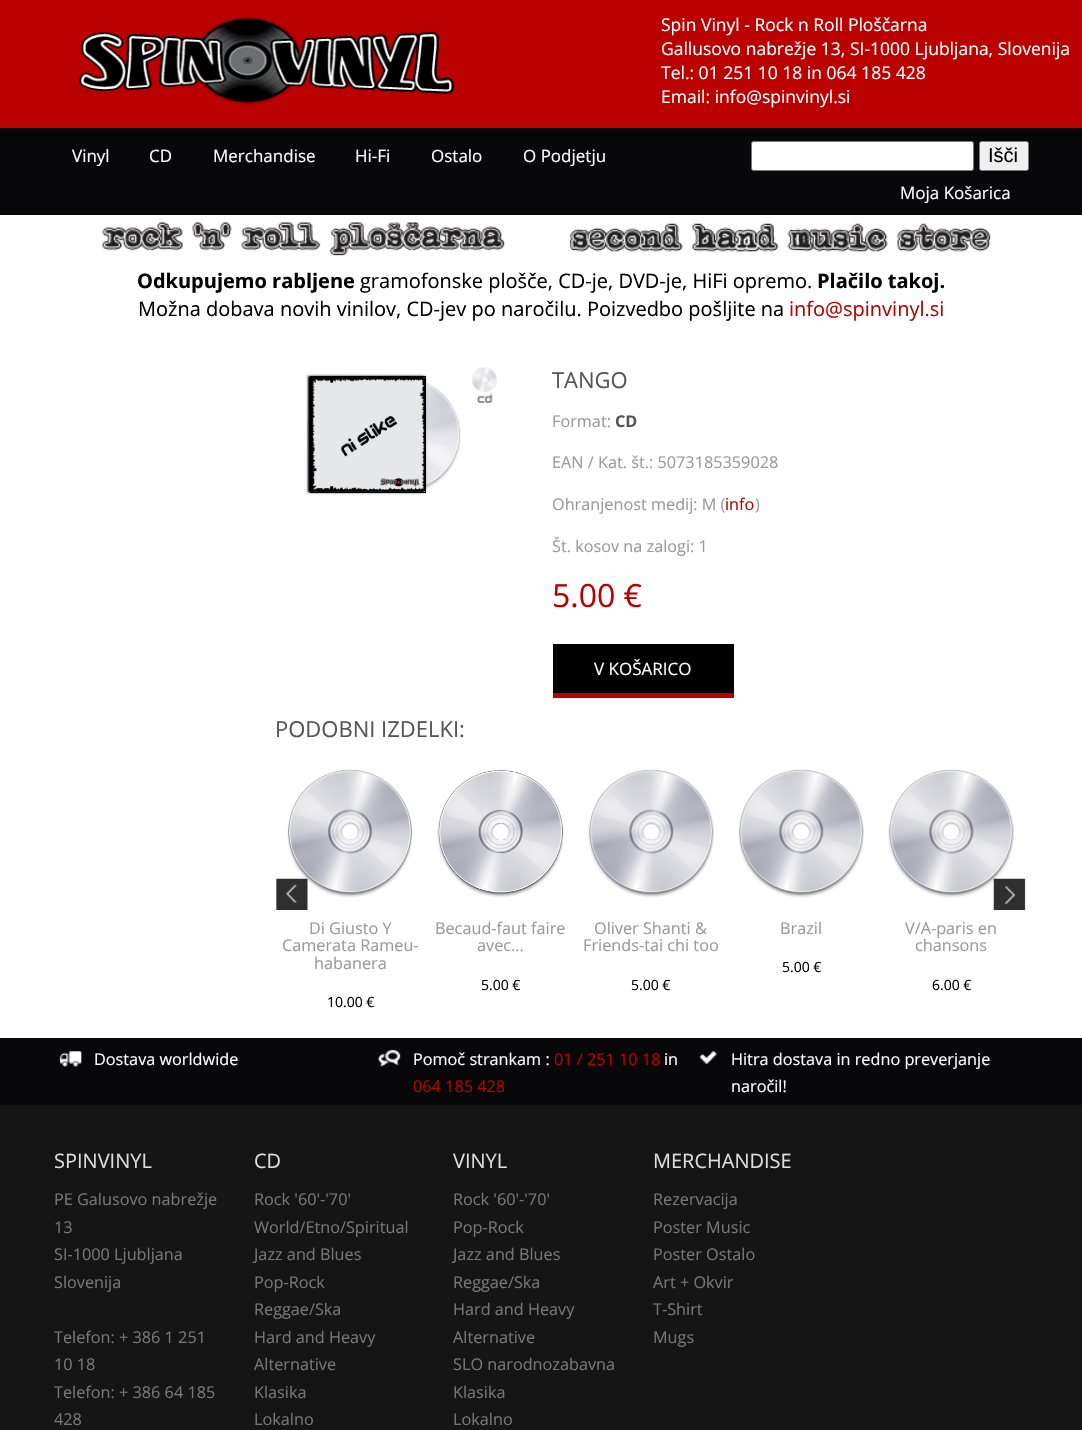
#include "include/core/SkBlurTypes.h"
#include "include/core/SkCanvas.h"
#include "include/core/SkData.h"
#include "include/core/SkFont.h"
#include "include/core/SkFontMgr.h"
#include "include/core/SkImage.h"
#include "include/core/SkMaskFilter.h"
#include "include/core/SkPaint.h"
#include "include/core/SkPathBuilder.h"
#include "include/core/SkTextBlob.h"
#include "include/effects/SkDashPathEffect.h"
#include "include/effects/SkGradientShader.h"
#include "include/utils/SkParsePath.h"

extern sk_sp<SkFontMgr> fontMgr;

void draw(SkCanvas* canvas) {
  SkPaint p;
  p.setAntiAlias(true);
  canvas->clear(SK_ColorWHITE);
  p.setColor(SkColorSetRGB(187, 0, 0));
  canvas->drawRect(SkRect::MakeLTRB(0, 0, 1082, 128), p);
  canvas->drawImageRect(SkImages::DeferredFromEncodedData(SkData::MakeFromFileName("images/1.png")), SkRect::MakeLTRB(79, 16, 455, 105), SkSamplingOptions());
  p.setColor(SkColorSetRGB(8, 8, 11));
  canvas->drawRect(SkRect::MakeLTRB(0, 128, 1082, 215), p);
  p.setColor(SK_ColorWHITE);
  canvas->drawRoundRect(SkRect::MakeLTRB(751.5f, 141.5f, 973.5f, 170.5f), 2, 2, p);
  p.setStyle(SkPaint::kStroke_Style);
  p.setStrokeWidth(1);
  p.setColor(SkColorSetRGB(118, 118, 118));
  canvas->drawRoundRect(SkRect::MakeLTRB(751.5f, 141.5f, 973.5f, 170.5f), 2, 2, p);
  p.setStyle(SkPaint::kFill_Style);
  p.setColor(SkColorSetRGB(239, 239, 239));
  canvas->drawRoundRect(SkRect::MakeLTRB(979.5f, 141.5f, 1028.5f, 170.5f), 2, 2, p);
  p.setStyle(SkPaint::kStroke_Style);
  p.setColor(SkColorSetRGB(118, 118, 118));
  canvas->drawRoundRect(SkRect::MakeLTRB(979.5f, 141.5f, 1028.5f, 170.5f), 2, 2, p);
  canvas->drawImageRect(SkImages::DeferredFromEncodedData(SkData::MakeFromFileName("images/2.png")), SkRect::MakeLTRB(102, 222, 506, 256), SkSamplingOptions());
  canvas->drawImageRect(SkImages::DeferredFromEncodedData(SkData::MakeFromFileName("images/3.png")), SkRect::MakeLTRB(569, 223, 991, 253), SkSamplingOptions());
  canvas->drawImageRect(SkImages::DeferredFromEncodedData(SkData::MakeFromFileName("images/4.png")), SkRect::MakeLTRB(306, 367, 497, 495), SkSamplingOptions());
  p.setColor(SK_ColorBLACK);
  canvas->drawRect(SkRect::MakeLTRB(310.5f, 376.5f, 425.5f, 492.5f), p);
  canvas->drawImageRect(SkImages::DeferredFromEncodedData(SkData::MakeFromFileName("images/5.png")), SkRect::MakeLTRB(311, 377, 425, 492), SkSamplingOptions());
  p.setStyle(SkPaint::kFill_Style);
  canvas->drawRect(SkRect::MakeLTRB(553, 644, 734, 693), p);
  p.setColor(SkColorSetRGB(187, 0, 0));
  canvas->drawRect(SkRect::MakeLTRB(553, 693, 734, 698), p);
  canvas->drawImageRect(SkImages::DeferredFromEncodedData(SkData::MakeFromFileName("images/8.png")), SkRect::MakeLTRB(287, 769, 413, 898), SkSamplingOptions());
  canvas->drawImageRect(SkImages::DeferredFromEncodedData(SkData::MakeFromFileName("images/6.png")), SkRect::MakeLTRB(276, 878, 308, 910), SkSamplingOptions());
  canvas->drawImageRect(SkImages::DeferredFromEncodedData(SkData::MakeFromFileName("images/10.png")), SkRect::MakeLTRB(888, 769, 1014, 898), SkSamplingOptions());
  canvas->drawImageRect(SkImages::DeferredFromEncodedData(SkData::MakeFromFileName("images/7.png")), SkRect::MakeLTRB(993, 878, 1026, 910), SkSamplingOptions());
  canvas->drawImageRect(SkImages::DeferredFromEncodedData(SkData::MakeFromFileName("images/9.png")), SkRect::MakeLTRB(437, 770, 564, 898), SkSamplingOptions());
  canvas->drawImageRect(SkImages::DeferredFromEncodedData(SkData::MakeFromFileName("images/10.png")), SkRect::MakeLTRB(588, 769, 714, 898), SkSamplingOptions());
  canvas->drawImageRect(SkImages::DeferredFromEncodedData(SkData::MakeFromFileName("images/10.png")), SkRect::MakeLTRB(738, 769, 864, 898), SkSamplingOptions());
  p.setColor(SkColorSetRGB(8, 8, 11));
  canvas->drawRect(SkRect::MakeLTRB(0, 1038, 1082, 1105), p);
  canvas->drawImageRect(SkImages::DeferredFromEncodedData(SkData::MakeFromFileName("images/11.png")), SkRect::MakeLTRB(59, 1051, 82, 1067), SkSamplingOptions());
  canvas->drawImageRect(SkImages::DeferredFromEncodedData(SkData::MakeFromFileName("images/12.png")), SkRect::MakeLTRB(378, 1049, 401, 1067), SkSamplingOptions());
  canvas->drawImageRect(SkImages::DeferredFromEncodedData(SkData::MakeFromFileName("images/13.png")), SkRect::MakeLTRB(699, 1051, 717, 1064), SkSamplingOptions());
  p.setColor(SkColorSetRGB(21, 21, 21));
  canvas->drawRect(SkRect::MakeLTRB(0, 1105, 1082, 1430), p);
  SkFont font1(fontMgr->matchFamilyStyle("Open Sans", SkFontStyle::Normal()), 17.5f);
  font1.setSubpixel(true);
  p.setColor(SK_ColorWHITE);
  canvas->drawString("Spin Vinyl - Rock n Roll Ploščarna", 661, 31, font1, p);
  canvas->drawString("Gallusovo nabrežje 13, SI-1000 Ljubljana, Slovenija", 661, 55, font1, p);
  canvas->drawString("Tel.: 01 251 10 18 in 064 185 428", 661, 79, font1, p);
  canvas->drawString("Email: info@spinvinyl.si", 661, 103, font1, p);
  SkFont font2(fontMgr->matchFamilyStyle("Open Sans", SkFontStyle::Normal()), 17);
  font2.setSubpixel(true);
  canvas->drawString("Vinyl", 72, 162, font2, p);
  canvas->drawString("CD", 149, 162, font2, p);
  canvas->drawString("Merchandise", 213, 162, font2, p);
  canvas->drawString("Hi-Fi", 355, 162, font2, p);
  canvas->drawString("Ostalo", 431, 162, font2, p);
  canvas->drawString("O Podjetju", 523, 162, font2, p);
  SkFont font3(fontMgr->matchFamilyStyle("Liberation Sans", SkFontStyle::Normal()), 20);
  font3.setSubpixel(true);
  p.setColor(SK_ColorBLACK);
  canvas->drawString("Išči", 988, 162, font3, p);
  p.setColor(SK_ColorWHITE);
  canvas->drawString("Moja Košarica", 900, 199, font2, p);
  SkFont font4(fontMgr->matchFamilyStyle("Open Sans", SkFontStyle::Bold()), 20);
  font4.setSubpixel(true);
  p.setColor(SK_ColorBLACK);
  canvas->drawString("Odkupujemo rabljene", 137, 288, font4, p);
  SkFont font5(fontMgr->matchFamilyStyle("Open Sans", SkFontStyle::Normal()), 20);
  font5.setSubpixel(true);
  canvas->drawString("gramofonske plošče, CD-je, DVD-je, HiFi opremo.", 360, 288, font5, p);
  canvas->drawString("Plačilo takoj.", 817, 288, font4, p);
  canvas->drawString("Možna dobava novih vinilov, CD-jev po naročilu. Poizvedbo pošljite na", 138, 316, font5, p);
  p.setColor(SkColorSetRGB(187, 0, 0));
  canvas->drawString("info@spinvinyl.si", 789, 316, font5, p);
  SkFont font6(fontMgr->matchFamilyStyle("Open Sans", SkFontStyle::Normal()), 22);
  font6.setSubpixel(true);
  p.setColor(SkColorSetRGB(85, 85, 85));
  canvas->drawString("TANGO", 552, 388, font6, p);
  SkFont font7(fontMgr->matchFamilyStyle("Open Sans", SkFontStyle::Normal()), 16.25f);
  font7.setSubpixel(true);
  p.setColor(SkColorSetRGB(153, 153, 153));
  canvas->drawString("Format:", 552, 427, font7, p);
  SkFont font8(fontMgr->matchFamilyStyle("Open Sans", SkFontStyle::Bold()), 16.25f);
  font8.setSubpixel(true);
  p.setColor(SkColorSetRGB(85, 85, 85));
  canvas->drawString("CD", 615, 427, font8, p);
  p.setColor(SkColorSetRGB(153, 153, 153));
  canvas->drawString("EAN / Kat. št.: 5073185359028", 552, 468, font7, p);
  canvas->drawString("Ohranjenost medij: M (", 552, 510, font7, p);
  p.setColor(SkColorSetRGB(187, 0, 0));
  canvas->drawString("info", 725, 510, font7, p);
  p.setColor(SkColorSetRGB(153, 153, 153));
  canvas->drawString(")", 755, 510, font7, p);
  canvas->drawString("Št. kosov na zalogi: 1", 552, 552, font7, p);
  SkFont font9(fontMgr->matchFamilyStyle("Open Sans", SkFontStyle::Normal()), 32);
  font9.setSubpixel(true);
  p.setColor(SkColorSetRGB(187, 0, 0));
  canvas->drawString("5.00 €", 552, 607, font9, p);
  p.setColor(SK_ColorWHITE);
  canvas->drawString("V KOŠARICO", 594, 675, font2, p);
  p.setColor(SkColorSetRGB(85, 85, 85));
  canvas->drawString("PODOBNI IZDELKI:", 275, 737, font6, p);
  p.setColor(SkColorSetRGB(153, 153, 153));
  canvas->drawString("Di Giusto Y", 309, 934, font7, p);
  canvas->drawString("Camerata Rameu-", 282, 951, font7, p);
  canvas->drawString("habanera", 314, 969, font7, p);
  SkFont font10(fontMgr->matchFamilyStyle("Open Sans", SkFontStyle::Normal()), 14);
  font10.setSubpixel(true);
  p.setColor(SK_ColorBLACK);
  canvas->drawString("10.00 €", 327, 1007, font10, p);
  p.setColor(SkColorSetRGB(153, 153, 153));
  canvas->drawString("Becaud-faut faire", 435, 934, font7, p);
  canvas->drawString("avec...", 477, 951, font7, p);
  p.setColor(SK_ColorBLACK);
  canvas->drawString("5.00 €", 481, 990, font10, p);
  p.setColor(SkColorSetRGB(153, 153, 153));
  canvas->drawString("Oliver Shanti &", 594, 934, font7, p);
  canvas->drawString("Friends-tai chi too", 583, 951, font7, p);
  p.setColor(SK_ColorBLACK);
  canvas->drawString("5.00 €", 631, 990, font10, p);
  p.setColor(SkColorSetRGB(153, 153, 153));
  canvas->drawString("Brazil", 780, 934, font7, p);
  p.setColor(SK_ColorBLACK);
  canvas->drawString("5.00 €", 782, 972, font10, p);
  p.setColor(SkColorSetRGB(153, 153, 153));
  canvas->drawString("V/A-paris en", 905, 934, font7, p);
  canvas->drawString("chansons", 915, 951, font7, p);
  p.setColor(SK_ColorBLACK);
  canvas->drawString("6.00 €", 932, 990, font10, p);
  p.setColor(SK_ColorWHITE);
  canvas->drawString("Dostava worldwide", 94, 1065, font7, p);
  canvas->drawString("Pomoč strankam :", 413, 1065, font7, p);
  p.setColor(SkColorSetRGB(187, 0, 0));
  canvas->drawString("01 / 251 10 18", 554, 1065, font7, p);
  p.setColor(SK_ColorWHITE);
  canvas->drawString("in", 664, 1065, font7, p);
  p.setColor(SkColorSetRGB(187, 0, 0));
  canvas->drawString("064 185 428", 413, 1092, font7, p);
  p.setColor(SK_ColorWHITE);
  canvas->drawString("Hitra dostava in redno preverjanje", 731, 1065, font7, p);
  canvas->drawString("naročil!", 731, 1092, font7, p);
  p.setColor(SkColorSetRGB(221, 221, 221));
  canvas->drawString("SPINVINYL", 54, 1168, font5, p);
  p.setColor(SkColorSetRGB(119, 119, 119));
  canvas->drawString("PE Galusovo nabrežje", 54, 1205, font7, p);
  canvas->drawString("13", 54, 1233, font7, p);
  canvas->drawString("SI-1000 Ljubljana", 54, 1260, font7, p);
  canvas->drawString("Slovenija", 54, 1288, font7, p);
  canvas->drawString("Telefon: + 386 1 251", 54, 1343, font7, p);
  canvas->drawString("10 18", 54, 1370, font7, p);
  canvas->drawString("Telefon: + 386 64 185", 54, 1398, font7, p);
  canvas->drawString("428", 54, 1425, font7, p);
  p.setColor(SkColorSetRGB(221, 221, 221));
  canvas->drawString("CD", 254, 1168, font5, p);
  p.setColor(SkColorSetRGB(119, 119, 119));
  canvas->drawString("Rock '60'-'70'", 254, 1205, font7, p);
  canvas->drawString("World/Etno/Spiritual", 254, 1233, font7, p);
  canvas->drawString("Jazz and Blues", 254, 1260, font7, p);
  canvas->drawString("Pop-Rock", 254, 1288, font7, p);
  canvas->drawString("Reggae/Ska", 254, 1315, font7, p);
  canvas->drawString("Hard and Heavy", 254, 1343, font7, p);
  canvas->drawString("Alternative", 254, 1370, font7, p);
  canvas->drawString("Klasika", 254, 1398, font7, p);
  canvas->drawString("Lokalno", 254, 1425, font7, p);
  p.setColor(SkColorSetRGB(221, 221, 221));
  canvas->drawString("VINYL", 453, 1168, font5, p);
  p.setColor(SkColorSetRGB(119, 119, 119));
  canvas->drawString("Rock '60'-'70'", 453, 1205, font7, p);
  canvas->drawString("Pop-Rock", 453, 1233, font7, p);
  canvas->drawString("Jazz and Blues", 453, 1260, font7, p);
  canvas->drawString("Reggae/Ska", 453, 1288, font7, p);
  canvas->drawString("Hard and Heavy", 453, 1315, font7, p);
  canvas->drawString("Alternative", 453, 1343, font7, p);
  canvas->drawString("SLO narodnozabavna", 453, 1370, font7, p);
  canvas->drawString("Klasika", 453, 1398, font7, p);
  canvas->drawString("Lokalno", 453, 1425, font7, p);
  p.setColor(SkColorSetRGB(221, 221, 221));
  canvas->drawString("MERCHANDISE", 653, 1168, font5, p);
  p.setColor(SkColorSetRGB(119, 119, 119));
  canvas->drawString("Rezervacija", 653, 1205, font7, p);
  canvas->drawString("Poster Music", 653, 1233, font7, p);
  canvas->drawString("Poster Ostalo", 653, 1260, font7, p);
  canvas->drawString("Art + Okvir", 653, 1288, font7, p);
  canvas->drawString("T-Shirt", 653, 1315, font7, p);
  canvas->drawString("Mugs", 653, 1343, font7, p);
}
